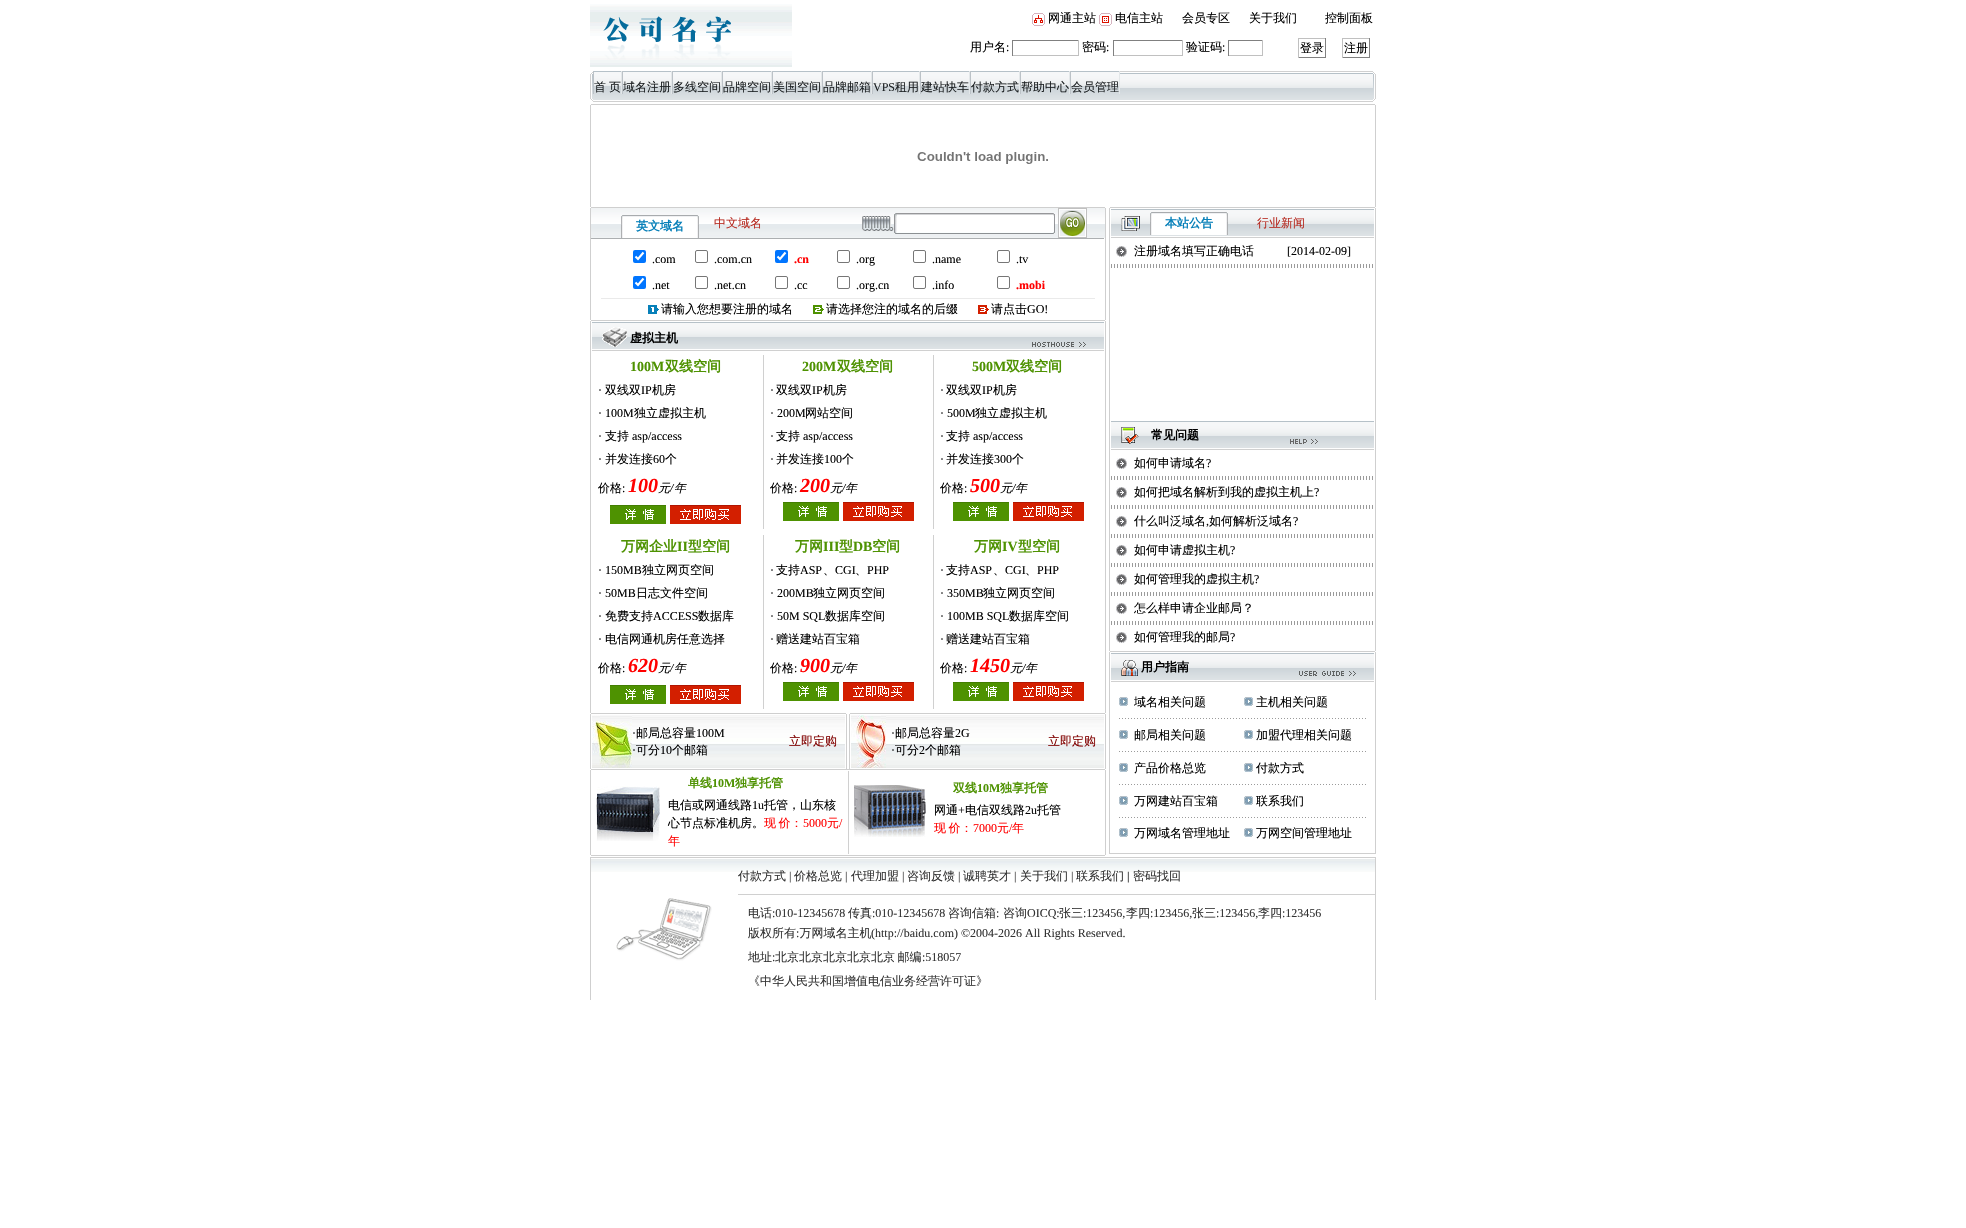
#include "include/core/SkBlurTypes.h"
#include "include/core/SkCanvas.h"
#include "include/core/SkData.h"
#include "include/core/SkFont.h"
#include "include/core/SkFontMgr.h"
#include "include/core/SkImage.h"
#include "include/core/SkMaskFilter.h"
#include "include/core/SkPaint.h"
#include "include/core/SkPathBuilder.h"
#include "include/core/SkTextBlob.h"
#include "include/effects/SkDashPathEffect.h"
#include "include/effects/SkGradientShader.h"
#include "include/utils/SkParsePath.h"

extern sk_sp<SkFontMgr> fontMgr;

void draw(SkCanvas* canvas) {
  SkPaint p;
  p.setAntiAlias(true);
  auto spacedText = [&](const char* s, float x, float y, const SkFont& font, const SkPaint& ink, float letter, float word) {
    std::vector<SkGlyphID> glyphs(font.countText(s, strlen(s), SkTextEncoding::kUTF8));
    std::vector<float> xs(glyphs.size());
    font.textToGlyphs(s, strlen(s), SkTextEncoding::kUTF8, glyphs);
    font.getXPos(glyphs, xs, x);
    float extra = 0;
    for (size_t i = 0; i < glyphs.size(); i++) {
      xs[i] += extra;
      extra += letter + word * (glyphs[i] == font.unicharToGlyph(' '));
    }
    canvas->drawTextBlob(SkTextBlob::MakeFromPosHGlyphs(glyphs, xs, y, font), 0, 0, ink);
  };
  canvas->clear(SK_ColorWHITE);
  canvas->drawImageRect(SkImages::DeferredFromEncodedData(SkData::MakeFromFileName("images/1.png")), SkRect::MakeLTRB(590, 4, 792, 67), SkSamplingOptions());
  canvas->drawImageRect(SkImages::DeferredFromEncodedData(SkData::MakeFromFileName("images/2.png")), SkRect::MakeLTRB(1032, 13, 1045, 26), SkSamplingOptions());
  canvas->drawImageRect(SkImages::DeferredFromEncodedData(SkData::MakeFromFileName("images/3.png")), SkRect::MakeLTRB(1099, 13, 1112, 26), SkSamplingOptions());
  p.setColor(SkColorSetRGB(128, 128, 128));
  canvas->drawRect(SkRect::MakeLTRB(1012, 40, 1079, 41), p);
  p.setColor(SkColorSetRGB(192, 192, 192));
  canvas->drawRect(SkRect::MakeLTRB(1078, 40, 1079, 56), p);
  canvas->drawRect(SkRect::MakeLTRB(1012, 55, 1079, 56), p);
  p.setColor(SkColorSetRGB(128, 128, 128));
  canvas->drawRect(SkRect::MakeLTRB(1012, 40, 1013, 56), p);
  canvas->drawRect(SkRect::MakeLTRB(1113, 40, 1183, 41), p);
  p.setColor(SkColorSetRGB(192, 192, 192));
  canvas->drawRect(SkRect::MakeLTRB(1182, 40, 1183, 56), p);
  canvas->drawRect(SkRect::MakeLTRB(1113, 55, 1183, 56), p);
  p.setColor(SkColorSetRGB(128, 128, 128));
  canvas->drawRect(SkRect::MakeLTRB(1113, 40, 1114, 56), p);
  canvas->drawRect(SkRect::MakeLTRB(1228, 40, 1263, 41), p);
  p.setColor(SkColorSetRGB(192, 192, 192));
  canvas->drawRect(SkRect::MakeLTRB(1262, 40, 1263, 56), p);
  canvas->drawRect(SkRect::MakeLTRB(1228, 55, 1263, 56), p);
  p.setColor(SkColorSetRGB(128, 128, 128));
  canvas->drawRect(SkRect::MakeLTRB(1228, 40, 1229, 56), p);
  p.setColor(SkColorSetRGB(192, 192, 192));
  canvas->drawRect(SkRect::MakeLTRB(1298, 38, 1326, 39), p);
  p.setColor(SkColorSetRGB(128, 128, 128));
  canvas->drawRect(SkRect::MakeLTRB(1325, 38, 1326, 58), p);
  canvas->drawRect(SkRect::MakeLTRB(1298, 57, 1326, 58), p);
  p.setColor(SkColorSetRGB(192, 192, 192));
  canvas->drawRect(SkRect::MakeLTRB(1298, 38, 1299, 58), p);
  canvas->drawRect(SkRect::MakeLTRB(1342, 38, 1370, 39), p);
  p.setColor(SkColorSetRGB(128, 128, 128));
  canvas->drawRect(SkRect::MakeLTRB(1369, 38, 1370, 58), p);
  canvas->drawRect(SkRect::MakeLTRB(1342, 57, 1370, 58), p);
  p.setColor(SkColorSetRGB(192, 192, 192));
  canvas->drawRect(SkRect::MakeLTRB(1342, 38, 1343, 58), p);
  canvas->drawImageRect(SkImages::DeferredFromEncodedData(SkData::MakeFromFileName("images/4.png")), SkRect::MakeLTRB(590, 72, 593, 101), SkSamplingOptions());
  canvas->drawImageRect(SkImages::DeferredFromEncodedData(SkData::MakeFromFileName("images/5.png")), SkRect::MakeLTRB(593, 73, 1373, 100), SkSamplingOptions());
  p.setColor(SkColorSetRGB(208, 208, 208));
  canvas->drawRect(SkRect::MakeLTRB(1120, 71, 1373, 72), p);
  canvas->drawRect(SkRect::MakeLTRB(593, 101, 1373, 102), p);
  canvas->drawImageRect(SkImages::DeferredFromEncodedData(SkData::MakeFromFileName("images/6.png")), SkRect::MakeLTRB(594, 71, 621, 88), SkSamplingOptions());
  p.setColor(SkColorSetRGB(188, 194, 199));
  canvas->drawRect(SkRect::MakeLTRB(593, 71, 594, 94), p);
  p.setColor(SkColorSetRGB(227, 231, 233));
  canvas->drawRect(SkRect::MakeLTRB(621, 71, 622, 94), p);
  canvas->drawImageRect(SkImages::DeferredFromEncodedData(SkData::MakeFromFileName("images/7.png")), SkRect::MakeLTRB(623, 71, 671, 88), SkSamplingOptions());
  canvas->drawRect(SkRect::MakeLTRB(671, 71, 672, 94), p);
  p.setColor(SkColorSetRGB(188, 194, 199));
  canvas->drawRect(SkRect::MakeLTRB(622, 71, 623, 94), p);
  canvas->drawImageRect(SkImages::DeferredFromEncodedData(SkData::MakeFromFileName("images/7.png")), SkRect::MakeLTRB(673, 71, 721, 88), SkSamplingOptions());
  p.setColor(SkColorSetRGB(227, 231, 233));
  canvas->drawRect(SkRect::MakeLTRB(721, 71, 722, 94), p);
  p.setColor(SkColorSetRGB(188, 194, 199));
  canvas->drawRect(SkRect::MakeLTRB(672, 71, 673, 94), p);
  canvas->drawImageRect(SkImages::DeferredFromEncodedData(SkData::MakeFromFileName("images/7.png")), SkRect::MakeLTRB(723, 71, 771, 88), SkSamplingOptions());
  p.setColor(SkColorSetRGB(227, 231, 233));
  canvas->drawRect(SkRect::MakeLTRB(771, 71, 772, 94), p);
  p.setColor(SkColorSetRGB(188, 194, 199));
  canvas->drawRect(SkRect::MakeLTRB(722, 71, 723, 94), p);
  canvas->drawImageRect(SkImages::DeferredFromEncodedData(SkData::MakeFromFileName("images/7.png")), SkRect::MakeLTRB(773, 71, 821, 88), SkSamplingOptions());
  p.setColor(SkColorSetRGB(227, 231, 233));
  canvas->drawRect(SkRect::MakeLTRB(821, 71, 822, 94), p);
  p.setColor(SkColorSetRGB(188, 194, 199));
  canvas->drawRect(SkRect::MakeLTRB(772, 71, 773, 94), p);
  canvas->drawImageRect(SkImages::DeferredFromEncodedData(SkData::MakeFromFileName("images/7.png")), SkRect::MakeLTRB(823, 71, 871, 88), SkSamplingOptions());
  p.setColor(SkColorSetRGB(227, 231, 233));
  canvas->drawRect(SkRect::MakeLTRB(871, 71, 872, 94), p);
  p.setColor(SkColorSetRGB(188, 194, 199));
  canvas->drawRect(SkRect::MakeLTRB(822, 71, 823, 94), p);
  canvas->drawImageRect(SkImages::DeferredFromEncodedData(SkData::MakeFromFileName("images/8.png")), SkRect::MakeLTRB(873, 71, 919, 88), SkSamplingOptions());
  canvas->drawRect(SkRect::MakeLTRB(872, 71, 873, 94), p);
  p.setColor(SkColorSetRGB(227, 231, 233));
  canvas->drawRect(SkRect::MakeLTRB(919, 71, 920, 94), p);
  canvas->drawImageRect(SkImages::DeferredFromEncodedData(SkData::MakeFromFileName("images/7.png")), SkRect::MakeLTRB(921, 71, 969, 88), SkSamplingOptions());
  canvas->drawRect(SkRect::MakeLTRB(969, 71, 970, 94), p);
  p.setColor(SkColorSetRGB(188, 194, 199));
  canvas->drawRect(SkRect::MakeLTRB(920, 71, 921, 94), p);
  canvas->drawImageRect(SkImages::DeferredFromEncodedData(SkData::MakeFromFileName("images/7.png")), SkRect::MakeLTRB(971, 71, 1019, 88), SkSamplingOptions());
  p.setColor(SkColorSetRGB(227, 231, 233));
  canvas->drawRect(SkRect::MakeLTRB(1019, 71, 1020, 94), p);
  p.setColor(SkColorSetRGB(188, 194, 199));
  canvas->drawRect(SkRect::MakeLTRB(970, 71, 971, 94), p);
  canvas->drawImageRect(SkImages::DeferredFromEncodedData(SkData::MakeFromFileName("images/7.png")), SkRect::MakeLTRB(1021, 71, 1069, 88), SkSamplingOptions());
  p.setColor(SkColorSetRGB(227, 231, 233));
  canvas->drawRect(SkRect::MakeLTRB(1069, 71, 1070, 94), p);
  p.setColor(SkColorSetRGB(188, 194, 199));
  canvas->drawRect(SkRect::MakeLTRB(1020, 71, 1021, 94), p);
  canvas->drawImageRect(SkImages::DeferredFromEncodedData(SkData::MakeFromFileName("images/7.png")), SkRect::MakeLTRB(1071, 71, 1119, 88), SkSamplingOptions());
  p.setColor(SkColorSetRGB(227, 231, 233));
  canvas->drawRect(SkRect::MakeLTRB(1119, 71, 1120, 94), p);
  p.setColor(SkColorSetRGB(188, 194, 199));
  canvas->drawRect(SkRect::MakeLTRB(1070, 71, 1071, 94), p);
  canvas->drawImageRect(SkImages::DeferredFromEncodedData(SkData::MakeFromFileName("images/9.png")), SkRect::MakeLTRB(1373, 72, 1376, 101), SkSamplingOptions());
  p.setColor(SkColorSetRGB(207, 207, 207));
  canvas->drawRect(SkRect::MakeLTRB(590, 104, 1376, 105), p);
  p.setColor(SK_ColorWHITE);
  canvas->drawRect(SkRect::MakeLTRB(590, 104, 591, 105), p);
  canvas->drawRect(SkRect::MakeLTRB(1375, 104, 1376, 105), p);
  p.setColor(SkColorSetRGB(207, 207, 207));
  canvas->drawRect(SkRect::MakeLTRB(1375, 105, 1376, 207), p);
  canvas->drawRect(SkRect::MakeLTRB(590, 105, 591, 207), p);
  canvas->drawImageRect(SkImages::DeferredFromEncodedData(SkData::MakeFromFileName("images/10.png")), SkRect::MakeLTRB(917, 152, 1048, 164), SkSamplingOptions());
  canvas->drawRect(SkRect::MakeLTRB(590, 207, 1106, 208), p);
  p.setColor(SK_ColorWHITE);
  canvas->drawRect(SkRect::MakeLTRB(590, 207, 591, 208), p);
  canvas->drawRect(SkRect::MakeLTRB(1105, 207, 1106, 208), p);
  p.setColor(SkColorSetRGB(207, 207, 207));
  canvas->drawRect(SkRect::MakeLTRB(1105, 208, 1106, 320), p);
  canvas->drawRect(SkRect::MakeLTRB(590, 208, 591, 320), p);
  canvas->drawImageRect(SkImages::DeferredFromEncodedData(SkData::MakeFromFileName("images/11.png")), SkRect::MakeLTRB(591, 208, 1105, 238), SkSamplingOptions());
  canvas->drawImageRect(SkImages::DeferredFromEncodedData(SkData::MakeFromFileName("images/12.png")), SkRect::MakeLTRB(621, 215, 623, 238), SkSamplingOptions());
  canvas->drawImageRect(SkImages::DeferredFromEncodedData(SkData::MakeFromFileName("images/13.png")), SkRect::MakeLTRB(623, 215, 697, 238), SkSamplingOptions());
  canvas->drawImageRect(SkImages::DeferredFromEncodedData(SkData::MakeFromFileName("images/14.png")), SkRect::MakeLTRB(697, 215, 699, 238), SkSamplingOptions());
  canvas->drawImageRect(SkImages::DeferredFromEncodedData(SkData::MakeFromFileName("images/15.png")), SkRect::MakeLTRB(862, 216, 894, 231), SkSamplingOptions());
  canvas->drawImageRect(SkImages::DeferredFromEncodedData(SkData::MakeFromFileName("images/16.png")), SkRect::MakeLTRB(894, 213, 897, 234), SkSamplingOptions());
  canvas->drawImageRect(SkImages::DeferredFromEncodedData(SkData::MakeFromFileName("images/17.png")), SkRect::MakeLTRB(897, 213, 1053, 234), SkSamplingOptions());
  p.setColor(SK_ColorWHITE);
  canvas->drawRect(SkRect::MakeLTRB(897, 215, 1053, 216), p);
  canvas->drawImageRect(SkImages::DeferredFromEncodedData(SkData::MakeFromFileName("images/18.png")), SkRect::MakeLTRB(1053, 213, 1055, 234), SkSamplingOptions());
  canvas->drawRect(SkRect::MakeLTRB(1058.5f, 208.5f, 1086.5f, 237.5f), p);
  p.setStyle(SkPaint::kStroke_Style);
  p.setStrokeWidth(1);
  p.setColor(SkColorSetRGB(192, 192, 192));
  canvas->drawRect(SkRect::MakeLTRB(1058.5f, 208.5f, 1086.5f, 237.5f), p);
  canvas->drawImageRect(SkImages::DeferredFromEncodedData(SkData::MakeFromFileName("images/19.png")), SkRect::MakeLTRB(1060, 210, 1085, 236), SkSamplingOptions());
  p.setStyle(SkPaint::kFill_Style);
  p.setColor(SkColorSetRGB(172, 175, 177));
  canvas->drawRect(SkRect::MakeLTRB(591, 238, 1104, 239), p);
  p.setColor(SkColorSetRGB(0, 117, 255));
  canvas->drawRoundRect(SkRect::MakeLTRB(633, 250, 646, 263), 2, 2, p);
  p.setStyle(SkPaint::kStroke_Style);
  p.setStrokeWidth(2.1f);
  p.setColor(SK_ColorWHITE);
  canvas->drawPath(SkPathBuilder().moveTo(635.5f, 256.5f).lineTo(638, 259).lineTo(643.5f, 252.5f).detach(), p);
  p.setStrokeWidth(1);
  p.setColor(SkColorSetRGB(118, 118, 118));
  canvas->drawRoundRect(SkRect::MakeLTRB(695.5f, 250.5f, 707.5f, 262.5f), 1.5f, 1.5f, p);
  p.setStyle(SkPaint::kFill_Style);
  p.setColor(SkColorSetRGB(0, 117, 255));
  canvas->drawRoundRect(SkRect::MakeLTRB(775, 250, 788, 263), 2, 2, p);
  p.setStyle(SkPaint::kStroke_Style);
  p.setStrokeWidth(2.1f);
  p.setColor(SK_ColorWHITE);
  canvas->drawPath(SkPathBuilder().moveTo(777.5f, 256.5f).lineTo(780, 259).lineTo(785.5f, 252.5f).detach(), p);
  p.setStrokeWidth(1);
  p.setColor(SkColorSetRGB(118, 118, 118));
  canvas->drawRoundRect(SkRect::MakeLTRB(837.5f, 250.5f, 849.5f, 262.5f), 1.5f, 1.5f, p);
  canvas->drawRoundRect(SkRect::MakeLTRB(913.5f, 250.5f, 925.5f, 262.5f), 1.5f, 1.5f, p);
  canvas->drawRoundRect(SkRect::MakeLTRB(997.5f, 250.5f, 1009.5f, 262.5f), 1.5f, 1.5f, p);
  p.setStyle(SkPaint::kFill_Style);
  p.setColor(SkColorSetRGB(0, 117, 255));
  canvas->drawRoundRect(SkRect::MakeLTRB(633, 276, 646, 289), 2, 2, p);
  p.setStyle(SkPaint::kStroke_Style);
  p.setStrokeWidth(2.1f);
  p.setColor(SK_ColorWHITE);
  canvas->drawPath(SkPathBuilder().moveTo(635.5f, 282.5f).lineTo(638, 285).lineTo(643.5f, 278.5f).detach(), p);
  p.setStrokeWidth(1);
  p.setColor(SkColorSetRGB(118, 118, 118));
  canvas->drawRoundRect(SkRect::MakeLTRB(695.5f, 276.5f, 707.5f, 288.5f), 1.5f, 1.5f, p);
  canvas->drawRoundRect(SkRect::MakeLTRB(775.5f, 276.5f, 787.5f, 288.5f), 1.5f, 1.5f, p);
  canvas->drawRoundRect(SkRect::MakeLTRB(837.5f, 276.5f, 849.5f, 288.5f), 1.5f, 1.5f, p);
  canvas->drawRoundRect(SkRect::MakeLTRB(913.5f, 276.5f, 925.5f, 288.5f), 1.5f, 1.5f, p);
  canvas->drawRoundRect(SkRect::MakeLTRB(997.5f, 276.5f, 1009.5f, 288.5f), 1.5f, 1.5f, p);
  p.setStyle(SkPaint::kFill_Style);
  p.setColor(SkColorSetRGB(234, 234, 234));
  canvas->drawRect(SkRect::MakeLTRB(601, 298, 1095, 299), p);
  canvas->drawImageRect(SkImages::DeferredFromEncodedData(SkData::MakeFromFileName("images/20.png")), SkRect::MakeLTRB(648, 305, 659, 314), SkSamplingOptions());
  canvas->drawImageRect(SkImages::DeferredFromEncodedData(SkData::MakeFromFileName("images/21.png")), SkRect::MakeLTRB(813, 305, 824, 314), SkSamplingOptions());
  canvas->drawImageRect(SkImages::DeferredFromEncodedData(SkData::MakeFromFileName("images/22.png")), SkRect::MakeLTRB(978, 305, 989, 314), SkSamplingOptions());
  p.setColor(SkColorSetRGB(207, 207, 207));
  canvas->drawRect(SkRect::MakeLTRB(590, 320, 1106, 321), p);
  p.setColor(SK_ColorWHITE);
  canvas->drawRect(SkRect::MakeLTRB(590, 320, 591, 321), p);
  canvas->drawRect(SkRect::MakeLTRB(1105, 320, 1106, 321), p);
  p.setColor(SkColorSetRGB(207, 207, 207));
  canvas->drawRect(SkRect::MakeLTRB(1105, 321, 1106, 713), p);
  canvas->drawRect(SkRect::MakeLTRB(590, 321, 591, 713), p);
  canvas->drawImageRect(SkImages::DeferredFromEncodedData(SkData::MakeFromFileName("images/23.png")), SkRect::MakeLTRB(592, 322, 1104, 351), SkSamplingOptions());
  canvas->drawImageRect(SkImages::DeferredFromEncodedData(SkData::MakeFromFileName("images/24.png")), SkRect::MakeLTRB(602, 327, 627, 347), SkSamplingOptions());
  canvas->drawImageRect(SkImages::DeferredFromEncodedData(SkData::MakeFromFileName("images/25.png")), SkRect::MakeLTRB(1032, 342, 1086, 347), SkSamplingOptions());
  canvas->drawImageRect(SkImages::DeferredFromEncodedData(SkData::MakeFromFileName("images/26.png")), SkRect::MakeLTRB(610, 505, 666, 524), SkSamplingOptions());
  canvas->drawImageRect(SkImages::DeferredFromEncodedData(SkData::MakeFromFileName("images/27.png")), SkRect::MakeLTRB(670, 505, 741, 524), SkSamplingOptions());
  p.setColor(SkColorSetRGB(208, 208, 208));
  canvas->drawRect(SkRect::MakeLTRB(763, 355, 764, 529), p);
  canvas->drawImageRect(SkImages::DeferredFromEncodedData(SkData::MakeFromFileName("images/26.png")), SkRect::MakeLTRB(783, 502, 839, 521), SkSamplingOptions());
  canvas->drawImageRect(SkImages::DeferredFromEncodedData(SkData::MakeFromFileName("images/27.png")), SkRect::MakeLTRB(843, 502, 914, 521), SkSamplingOptions());
  canvas->drawRect(SkRect::MakeLTRB(933, 355, 934, 529), p);
  canvas->drawImageRect(SkImages::DeferredFromEncodedData(SkData::MakeFromFileName("images/26.png")), SkRect::MakeLTRB(953, 502, 1009, 521), SkSamplingOptions());
  canvas->drawImageRect(SkImages::DeferredFromEncodedData(SkData::MakeFromFileName("images/27.png")), SkRect::MakeLTRB(1013, 502, 1084, 521), SkSamplingOptions());
  canvas->drawImageRect(SkImages::DeferredFromEncodedData(SkData::MakeFromFileName("images/26.png")), SkRect::MakeLTRB(610, 685, 666, 704), SkSamplingOptions());
  canvas->drawImageRect(SkImages::DeferredFromEncodedData(SkData::MakeFromFileName("images/27.png")), SkRect::MakeLTRB(670, 685, 741, 704), SkSamplingOptions());
  canvas->drawRect(SkRect::MakeLTRB(763, 535, 764, 709), p);
  canvas->drawImageRect(SkImages::DeferredFromEncodedData(SkData::MakeFromFileName("images/26.png")), SkRect::MakeLTRB(783, 682, 839, 701), SkSamplingOptions());
  canvas->drawImageRect(SkImages::DeferredFromEncodedData(SkData::MakeFromFileName("images/27.png")), SkRect::MakeLTRB(843, 682, 914, 701), SkSamplingOptions());
  canvas->drawRect(SkRect::MakeLTRB(933, 535, 934, 709), p);
  canvas->drawImageRect(SkImages::DeferredFromEncodedData(SkData::MakeFromFileName("images/26.png")), SkRect::MakeLTRB(953, 682, 1009, 701), SkSamplingOptions());
  canvas->drawImageRect(SkImages::DeferredFromEncodedData(SkData::MakeFromFileName("images/27.png")), SkRect::MakeLTRB(1013, 682, 1084, 701), SkSamplingOptions());
  p.setColor(SkColorSetRGB(207, 207, 207));
  canvas->drawRect(SkRect::MakeLTRB(590, 713, 847, 714), p);
  p.setColor(SK_ColorWHITE);
  canvas->drawRect(SkRect::MakeLTRB(590, 713, 591, 714), p);
  canvas->drawRect(SkRect::MakeLTRB(846, 713, 847, 714), p);
  p.setColor(SkColorSetRGB(207, 207, 207));
  canvas->drawRect(SkRect::MakeLTRB(846, 714, 847, 769), p);
  canvas->drawRect(SkRect::MakeLTRB(590, 714, 591, 769), p);
  canvas->drawImageRect(SkImages::DeferredFromEncodedData(SkData::MakeFromFileName("images/28.png")), SkRect::MakeLTRB(632, 715, 845, 768), SkSamplingOptions());
  canvas->drawImageRect(SkImages::DeferredFromEncodedData(SkData::MakeFromFileName("images/29.png")), SkRect::MakeLTRB(592, 715, 632, 768), SkSamplingOptions());
  canvas->drawRect(SkRect::MakeLTRB(849, 713, 1106, 714), p);
  p.setColor(SK_ColorWHITE);
  canvas->drawRect(SkRect::MakeLTRB(849, 713, 850, 714), p);
  canvas->drawRect(SkRect::MakeLTRB(1105, 713, 1106, 714), p);
  p.setColor(SkColorSetRGB(207, 207, 207));
  canvas->drawRect(SkRect::MakeLTRB(1105, 714, 1106, 769), p);
  canvas->drawRect(SkRect::MakeLTRB(849, 714, 850, 769), p);
  canvas->drawImageRect(SkImages::DeferredFromEncodedData(SkData::MakeFromFileName("images/30.png")), SkRect::MakeLTRB(886, 715, 1104, 768), SkSamplingOptions());
  canvas->drawImageRect(SkImages::DeferredFromEncodedData(SkData::MakeFromFileName("images/31.png")), SkRect::MakeLTRB(851, 715, 886, 768), SkSamplingOptions());
  canvas->drawRect(SkRect::MakeLTRB(590, 769, 1106, 770), p);
  p.setColor(SK_ColorWHITE);
  canvas->drawRect(SkRect::MakeLTRB(590, 769, 591, 770), p);
  canvas->drawRect(SkRect::MakeLTRB(1105, 769, 1106, 770), p);
  p.setColor(SkColorSetRGB(207, 207, 207));
  canvas->drawRect(SkRect::MakeLTRB(1105, 770, 1106, 855), p);
  canvas->drawRect(SkRect::MakeLTRB(590, 770, 591, 855), p);
  canvas->drawImageRect(SkImages::DeferredFromEncodedData(SkData::MakeFromFileName("images/32.png")), SkRect::MakeLTRB(596, 786, 660, 841), SkSamplingOptions());
  p.setColor(SkColorSetRGB(208, 208, 208));
  canvas->drawRect(SkRect::MakeLTRB(848, 771, 849, 854), p);
  canvas->drawImageRect(SkImages::DeferredFromEncodedData(SkData::MakeFromFileName("images/33.png")), SkRect::MakeLTRB(854, 785, 926, 837), SkSamplingOptions());
  p.setColor(SkColorSetRGB(207, 207, 207));
  canvas->drawRect(SkRect::MakeLTRB(590, 855, 1106, 856), p);
  p.setColor(SK_ColorWHITE);
  canvas->drawRect(SkRect::MakeLTRB(590, 855, 591, 856), p);
  canvas->drawRect(SkRect::MakeLTRB(1105, 855, 1106, 856), p);
  p.setColor(SkColorSetRGB(207, 207, 207));
  canvas->drawRect(SkRect::MakeLTRB(1109, 207, 1376, 208), p);
  p.setColor(SK_ColorWHITE);
  canvas->drawRect(SkRect::MakeLTRB(1109, 207, 1110, 208), p);
  canvas->drawRect(SkRect::MakeLTRB(1375, 207, 1376, 208), p);
  p.setColor(SkColorSetRGB(207, 207, 207));
  canvas->drawRect(SkRect::MakeLTRB(1375, 208, 1376, 651), p);
  canvas->drawRect(SkRect::MakeLTRB(1109, 208, 1110, 651), p);
  canvas->drawImageRect(SkImages::DeferredFromEncodedData(SkData::MakeFromFileName("images/34.png")), SkRect::MakeLTRB(1111, 209, 1374, 238), SkSamplingOptions());
  canvas->drawImageRect(SkImages::DeferredFromEncodedData(SkData::MakeFromFileName("images/35.png")), SkRect::MakeLTRB(1121, 216, 1140, 231), SkSamplingOptions());
  canvas->drawImageRect(SkImages::DeferredFromEncodedData(SkData::MakeFromFileName("images/12.png")), SkRect::MakeLTRB(1150, 212, 1152, 235), SkSamplingOptions());
  canvas->drawImageRect(SkImages::DeferredFromEncodedData(SkData::MakeFromFileName("images/13.png")), SkRect::MakeLTRB(1152, 212, 1226, 235), SkSamplingOptions());
  canvas->drawImageRect(SkImages::DeferredFromEncodedData(SkData::MakeFromFileName("images/14.png")), SkRect::MakeLTRB(1226, 212, 1228, 235), SkSamplingOptions());
  canvas->drawImageRect(SkImages::DeferredFromEncodedData(SkData::MakeFromFileName("images/36.png")), SkRect::MakeLTRB(1116, 246, 1127, 257), SkSamplingOptions());
  canvas->drawImageRect(SkImages::DeferredFromEncodedData(SkData::MakeFromFileName("images/37.png")), SkRect::MakeLTRB(1111, 264, 1373, 268), SkSamplingOptions());
  canvas->drawImageRect(SkImages::DeferredFromEncodedData(SkData::MakeFromFileName("images/34.png")), SkRect::MakeLTRB(1111, 421, 1374, 450), SkSamplingOptions());
  canvas->drawImageRect(SkImages::DeferredFromEncodedData(SkData::MakeFromFileName("images/38.png")), SkRect::MakeLTRB(1121, 427, 1139, 444), SkSamplingOptions());
  canvas->drawImageRect(SkImages::DeferredFromEncodedData(SkData::MakeFromFileName("images/39.png")), SkRect::MakeLTRB(1290, 439, 1318, 444), SkSamplingOptions());
  canvas->drawImageRect(SkImages::DeferredFromEncodedData(SkData::MakeFromFileName("images/36.png")), SkRect::MakeLTRB(1116, 458, 1127, 469), SkSamplingOptions());
  canvas->drawImageRect(SkImages::DeferredFromEncodedData(SkData::MakeFromFileName("images/37.png")), SkRect::MakeLTRB(1111, 476, 1373, 480), SkSamplingOptions());
  canvas->drawImageRect(SkImages::DeferredFromEncodedData(SkData::MakeFromFileName("images/36.png")), SkRect::MakeLTRB(1116, 487, 1127, 498), SkSamplingOptions());
  canvas->drawImageRect(SkImages::DeferredFromEncodedData(SkData::MakeFromFileName("images/37.png")), SkRect::MakeLTRB(1111, 505, 1373, 509), SkSamplingOptions());
  canvas->drawImageRect(SkImages::DeferredFromEncodedData(SkData::MakeFromFileName("images/36.png")), SkRect::MakeLTRB(1116, 516, 1127, 527), SkSamplingOptions());
  canvas->drawImageRect(SkImages::DeferredFromEncodedData(SkData::MakeFromFileName("images/37.png")), SkRect::MakeLTRB(1111, 534, 1373, 538), SkSamplingOptions());
  canvas->drawImageRect(SkImages::DeferredFromEncodedData(SkData::MakeFromFileName("images/36.png")), SkRect::MakeLTRB(1116, 545, 1127, 556), SkSamplingOptions());
  canvas->drawImageRect(SkImages::DeferredFromEncodedData(SkData::MakeFromFileName("images/37.png")), SkRect::MakeLTRB(1111, 563, 1373, 567), SkSamplingOptions());
  canvas->drawImageRect(SkImages::DeferredFromEncodedData(SkData::MakeFromFileName("images/36.png")), SkRect::MakeLTRB(1116, 574, 1127, 585), SkSamplingOptions());
  canvas->drawImageRect(SkImages::DeferredFromEncodedData(SkData::MakeFromFileName("images/37.png")), SkRect::MakeLTRB(1111, 592, 1373, 596), SkSamplingOptions());
  canvas->drawImageRect(SkImages::DeferredFromEncodedData(SkData::MakeFromFileName("images/36.png")), SkRect::MakeLTRB(1116, 603, 1127, 614), SkSamplingOptions());
  canvas->drawImageRect(SkImages::DeferredFromEncodedData(SkData::MakeFromFileName("images/37.png")), SkRect::MakeLTRB(1111, 621, 1373, 625), SkSamplingOptions());
  canvas->drawImageRect(SkImages::DeferredFromEncodedData(SkData::MakeFromFileName("images/36.png")), SkRect::MakeLTRB(1116, 632, 1127, 643), SkSamplingOptions());
  canvas->drawRect(SkRect::MakeLTRB(1109, 651, 1376, 652), p);
  p.setColor(SK_ColorWHITE);
  canvas->drawRect(SkRect::MakeLTRB(1109, 651, 1110, 652), p);
  canvas->drawRect(SkRect::MakeLTRB(1375, 651, 1376, 652), p);
  p.setColor(SkColorSetRGB(207, 207, 207));
  canvas->drawRect(SkRect::MakeLTRB(1375, 652, 1376, 853), p);
  canvas->drawRect(SkRect::MakeLTRB(1109, 652, 1110, 853), p);
  canvas->drawImageRect(SkImages::DeferredFromEncodedData(SkData::MakeFromFileName("images/34.png")), SkRect::MakeLTRB(1111, 653, 1374, 682), SkSamplingOptions());
  canvas->drawImageRect(SkImages::DeferredFromEncodedData(SkData::MakeFromFileName("images/40.png")), SkRect::MakeLTRB(1121, 660, 1138, 676), SkSamplingOptions());
  canvas->drawImageRect(SkImages::DeferredFromEncodedData(SkData::MakeFromFileName("images/41.png")), SkRect::MakeLTRB(1299, 671, 1356, 676), SkSamplingOptions());
  canvas->drawImageRect(SkImages::DeferredFromEncodedData(SkData::MakeFromFileName("images/42.png")), SkRect::MakeLTRB(1119, 697, 1128, 706), SkSamplingOptions());
  canvas->drawImageRect(SkImages::DeferredFromEncodedData(SkData::MakeFromFileName("images/42.png")), SkRect::MakeLTRB(1244, 697, 1253, 706), SkSamplingOptions());
  canvas->drawImageRect(SkImages::DeferredFromEncodedData(SkData::MakeFromFileName("images/43.png")), SkRect::MakeLTRB(1119, 718, 1366, 719), SkSamplingOptions());
  canvas->drawImageRect(SkImages::DeferredFromEncodedData(SkData::MakeFromFileName("images/42.png")), SkRect::MakeLTRB(1119, 730, 1128, 739), SkSamplingOptions());
  canvas->drawImageRect(SkImages::DeferredFromEncodedData(SkData::MakeFromFileName("images/42.png")), SkRect::MakeLTRB(1244, 730, 1253, 739), SkSamplingOptions());
  canvas->drawImageRect(SkImages::DeferredFromEncodedData(SkData::MakeFromFileName("images/43.png")), SkRect::MakeLTRB(1119, 751, 1366, 752), SkSamplingOptions());
  canvas->drawImageRect(SkImages::DeferredFromEncodedData(SkData::MakeFromFileName("images/42.png")), SkRect::MakeLTRB(1119, 763, 1128, 772), SkSamplingOptions());
  canvas->drawImageRect(SkImages::DeferredFromEncodedData(SkData::MakeFromFileName("images/42.png")), SkRect::MakeLTRB(1244, 763, 1253, 772), SkSamplingOptions());
  canvas->drawImageRect(SkImages::DeferredFromEncodedData(SkData::MakeFromFileName("images/43.png")), SkRect::MakeLTRB(1119, 784, 1366, 785), SkSamplingOptions());
  canvas->drawImageRect(SkImages::DeferredFromEncodedData(SkData::MakeFromFileName("images/42.png")), SkRect::MakeLTRB(1119, 796, 1128, 805), SkSamplingOptions());
  canvas->drawImageRect(SkImages::DeferredFromEncodedData(SkData::MakeFromFileName("images/42.png")), SkRect::MakeLTRB(1244, 796, 1253, 805), SkSamplingOptions());
  canvas->drawImageRect(SkImages::DeferredFromEncodedData(SkData::MakeFromFileName("images/43.png")), SkRect::MakeLTRB(1119, 817, 1366, 818), SkSamplingOptions());
  canvas->drawImageRect(SkImages::DeferredFromEncodedData(SkData::MakeFromFileName("images/42.png")), SkRect::MakeLTRB(1119, 828, 1128, 837), SkSamplingOptions());
  canvas->drawImageRect(SkImages::DeferredFromEncodedData(SkData::MakeFromFileName("images/42.png")), SkRect::MakeLTRB(1244, 828, 1253, 837), SkSamplingOptions());
  canvas->drawRect(SkRect::MakeLTRB(1109, 853, 1376, 854), p);
  canvas->drawRect(SkRect::MakeLTRB(1375, 857, 1376, 1000), p);
  canvas->drawRect(SkRect::MakeLTRB(590, 857, 591, 1000), p);
  canvas->drawImageRect(SkImages::DeferredFromEncodedData(SkData::MakeFromFileName("images/44.png")), SkRect::MakeLTRB(591, 859, 738, 872), SkSamplingOptions());
  canvas->drawRect(SkRect::MakeLTRB(591, 857, 1375, 858), p);
  canvas->drawImageRect(SkImages::DeferredFromEncodedData(SkData::MakeFromFileName("images/45.png")), SkRect::MakeLTRB(616, 898, 712, 961), SkSamplingOptions());
  canvas->drawImageRect(SkImages::DeferredFromEncodedData(SkData::MakeFromFileName("images/46.png")), SkRect::MakeLTRB(738, 859, 1375, 872), SkSamplingOptions());
  p.setColor(SkColorSetRGB(208, 208, 208));
  canvas->drawRect(SkRect::MakeLTRB(738, 894, 1375, 895), p);
  SkFont font1(fontMgr->matchFamilyStyle("WenQuanYi Zen Hei", SkFontStyle(500, SkFontStyle::kNormal_Width, SkFontStyle::kUpright_Slant)), 12);
  font1.setSubpixel(true);
  p.setColor(SK_ColorBLACK);
  canvas->drawString("网通主站", 1048, 22, font1, p);
  canvas->drawString("电信主站", 1115, 22, font1, p);
  canvas->drawString("会员专区", 1182, 22, font1, p);
  canvas->drawString("关于我们", 1249, 22, font1, p);
  canvas->drawString("控制面板", 1325, 22, font1, p);
  canvas->drawString("用户名", 970, 51, font1, p);
  SkFont font2(fontMgr->matchFamilyStyle("Liberation Serif", SkFontStyle::Normal()), 12);
  font2.setSubpixel(true);
  canvas->drawString(":", 1006, 51, font2, p);
  canvas->drawString("密码", 1082, 51, font1, p);
  canvas->drawString(":", 1106, 51, font2, p);
  canvas->drawString("验证码", 1186, 51, font1, p);
  canvas->drawString(":", 1222, 51, font2, p);
  canvas->drawString("登录", 1300, 52, font1, p);
  canvas->drawString("注册", 1344, 52, font1, p);
  p.setColor(SkColorSetRGB(29, 33, 35));
  canvas->drawString("首", 594, 91, font1, p);
  canvas->drawString("页", 609, 91, font1, p);
  canvas->drawString("域名注册", 623, 91, font1, p);
  canvas->drawString("多线空间", 673, 91, font1, p);
  canvas->drawString("品牌空间", 723, 91, font1, p);
  canvas->drawString("美国空间", 773, 91, font1, p);
  canvas->drawString("品牌邮箱", 823, 91, font1, p);
  canvas->drawString("VPS", 873, 91, font2, p);
  canvas->drawString("租用", 895, 91, font1, p);
  canvas->drawString("建站快车", 921, 91, font1, p);
  canvas->drawString("付款方式", 971, 91, font1, p);
  canvas->drawString("帮助中心", 1021, 91, font1, p);
  canvas->drawString("会员管理", 1071, 91, font1, p);
  SkFont font3(fontMgr->matchFamilyStyle("WenQuanYi Zen Hei", SkFontStyle::Bold()), 12);
  font3.setSubpixel(true);
  p.setColor(SkColorSetRGB(7, 128, 185));
  canvas->drawString("英文域名", 636, 230, font3, p);
  p.setColor(SkColorSetRGB(183, 41, 31));
  canvas->drawString("中文域名", 714, 227, font1, p);
  p.setColor(SK_ColorBLACK);
  canvas->drawString(".com", 652, 263, font2, p);
  canvas->drawString(".com.cn", 714, 263, font2, p);
  SkFont font4(fontMgr->matchFamilyStyle("Liberation Serif", SkFontStyle::Bold()), 12);
  font4.setSubpixel(true);
  p.setColor(SkColorSetRGB(255, 0, 0));
  canvas->drawString(".cn", 794, 263, font4, p);
  p.setColor(SK_ColorBLACK);
  canvas->drawString(".org", 856, 263, font2, p);
  canvas->drawString(".name", 932, 263, font2, p);
  canvas->drawString(".tv", 1016, 263, font2, p);
  canvas->drawString(".net", 652, 289, font2, p);
  canvas->drawString(".net.cn", 714, 289, font2, p);
  canvas->drawString(".cc", 794, 289, font2, p);
  canvas->drawString(".org.cn", 856, 289, font2, p);
  canvas->drawString(".info", 932, 289, font2, p);
  p.setColor(SkColorSetRGB(255, 0, 0));
  canvas->drawString(".mobi", 1016, 289, font4, p);
  p.setColor(SK_ColorBLACK);
  canvas->drawString("请输入您想要注册的域名", 661, 313, font1, p);
  canvas->drawString("请选择您注的域名的后缀", 826, 313, font1, p);
  canvas->drawString("请点击", 991, 313, font1, p);
  canvas->drawString("GO!", 1027, 313, font2, p);
  canvas->drawString("虚拟主机", 630, 342, font3, p);
  SkFont font5(fontMgr->matchFamilyStyle("Liberation Serif", SkFontStyle::Bold()), 14);
  font5.setSubpixel(true);
  p.setColor(SkColorSetRGB(78, 146, 1));
  canvas->drawString("100M", 630, 371, font5, p);
  SkFont font6(fontMgr->matchFamilyStyle("WenQuanYi Zen Hei", SkFontStyle::Bold()), 14);
  font6.setSubpixel(true);
  canvas->drawString("双线空间", 665, 371, font6, p);
  p.setColor(SK_ColorBLACK);
  canvas->drawString("·", 598, 394, font2, p);
  canvas->drawString("双线双", 605, 394, font1, p);
  canvas->drawString("IP", 641, 394, font2, p);
  canvas->drawString("机房", 652, 394, font1, p);
  canvas->drawString("· 100M", 598, 417, font2, p);
  canvas->drawString("独立虚拟主机", 634, 417, font1, p);
  canvas->drawString("·", 598, 440, font2, p);
  canvas->drawString("支持", 605, 440, font1, p);
  canvas->drawString("asp/access", 632, 440, font2, p);
  canvas->drawString("·", 598, 463, font2, p);
  canvas->drawString("并发连接", 605, 463, font1, p);
  canvas->drawString("60", 653, 463, font2, p);
  canvas->drawString("个", 665, 463, font1, p);
  canvas->drawString("价格", 598, 492, font1, p);
  canvas->drawString(":", 622, 492, font2, p);
  SkFont font7(fontMgr->matchFamilyStyle("Liberation Serif", SkFontStyle::BoldItalic()), 20);
  font7.setSubpixel(true);
  p.setColor(SkColorSetRGB(255, 0, 0));
  canvas->drawString("100", 628, 492, font7, p);
  SkFont font8(fontMgr->matchFamilyStyle("WenQuanYi Zen Hei", SkFontStyle(500, SkFontStyle::kNormal_Width, SkFontStyle::kItalic_Slant)), 12);
  font8.setSubpixel(true);
  p.setColor(SK_ColorBLACK);
  canvas->drawString("元", 658, 492, font8, p);
  SkFont font9(fontMgr->matchFamilyStyle("Liberation Serif", SkFontStyle::Italic()), 12);
  font9.setSubpixel(true);
  canvas->drawString("/", 670, 492, font9, p);
  canvas->drawString("年", 674, 492, font8, p);
  p.setColor(SkColorSetRGB(78, 146, 1));
  canvas->drawString("200M", 802, 371, font5, p);
  canvas->drawString("双线空间", 837, 371, font6, p);
  p.setColor(SK_ColorBLACK);
  canvas->drawString("·", 770, 394, font2, p);
  canvas->drawString("双线双", 776, 394, font1, p);
  canvas->drawString("IP", 812, 394, font2, p);
  canvas->drawString("机房", 823, 394, font1, p);
  canvas->drawString("· 200M", 770, 417, font2, p);
  canvas->drawString("网站空间", 805, 417, font1, p);
  canvas->drawString("·", 770, 440, font2, p);
  canvas->drawString("支持", 776, 440, font1, p);
  canvas->drawString("asp/access", 803, 440, font2, p);
  canvas->drawString("·", 770, 463, font2, p);
  canvas->drawString("并发连接", 776, 463, font1, p);
  canvas->drawString("100", 824, 463, font2, p);
  canvas->drawString("个", 842, 463, font1, p);
  canvas->drawString("价格", 770, 492, font1, p);
  canvas->drawString(":", 794, 492, font2, p);
  p.setColor(SkColorSetRGB(255, 0, 0));
  canvas->drawString("200", 800, 492, font7, p);
  p.setColor(SK_ColorBLACK);
  canvas->drawString("元", 830, 492, font8, p);
  canvas->drawString("/", 842, 492, font9, p);
  canvas->drawString("年", 845, 492, font8, p);
  p.setColor(SkColorSetRGB(78, 146, 1));
  canvas->drawString("500M", 972, 371, font5, p);
  canvas->drawString("双线空间", 1006, 371, font6, p);
  p.setColor(SK_ColorBLACK);
  canvas->drawString("·", 940, 394, font2, p);
  canvas->drawString("双线双", 946, 394, font1, p);
  canvas->drawString("IP", 982, 394, font2, p);
  canvas->drawString("机房", 993, 394, font1, p);
  canvas->drawString("· 500M", 940, 417, font2, p);
  canvas->drawString("独立虚拟主机", 975, 417, font1, p);
  canvas->drawString("·", 940, 440, font2, p);
  canvas->drawString("支持", 946, 440, font1, p);
  canvas->drawString("asp/access", 973, 440, font2, p);
  canvas->drawString("·", 940, 463, font2, p);
  canvas->drawString("并发连接", 946, 463, font1, p);
  canvas->drawString("300", 994, 463, font2, p);
  canvas->drawString("个", 1012, 463, font1, p);
  canvas->drawString("价格", 940, 492, font1, p);
  canvas->drawString(":", 964, 492, font2, p);
  p.setColor(SkColorSetRGB(255, 0, 0));
  canvas->drawString("500", 970, 492, font7, p);
  p.setColor(SK_ColorBLACK);
  canvas->drawString("元", 1000, 492, font8, p);
  canvas->drawString("/", 1012, 492, font9, p);
  canvas->drawString("年", 1015, 492, font8, p);
  p.setColor(SkColorSetRGB(78, 146, 1));
  canvas->drawString("万网企业", 621, 551, font6, p);
  canvas->drawString("II", 677, 551, font5, p);
  canvas->drawString("型空间", 688, 551, font6, p);
  p.setColor(SK_ColorBLACK);
  canvas->drawString("· 150MB", 598, 574, font2, p);
  canvas->drawString("独立网页空间", 642, 574, font1, p);
  canvas->drawString("· 50MB", 598, 597, font2, p);
  canvas->drawString("日志文件空间", 636, 597, font1, p);
  canvas->drawString("·", 598, 620, font2, p);
  canvas->drawString("免费支持", 605, 620, font1, p);
  canvas->drawString("ACCESS", 653, 620, font2, p);
  canvas->drawString("数据库", 698, 620, font1, p);
  canvas->drawString("·", 598, 643, font2, p);
  canvas->drawString("电信网通机房任意选择", 605, 643, font1, p);
  canvas->drawString("价格", 598, 672, font1, p);
  canvas->drawString(":", 622, 672, font2, p);
  p.setColor(SkColorSetRGB(255, 0, 0));
  canvas->drawString("620", 628, 672, font7, p);
  p.setColor(SK_ColorBLACK);
  canvas->drawString("元", 658, 672, font8, p);
  canvas->drawString("/", 670, 672, font9, p);
  canvas->drawString("年", 674, 672, font8, p);
  p.setColor(SkColorSetRGB(78, 146, 1));
  canvas->drawString("万网", 795, 551, font6, p);
  canvas->drawString("III", 823, 551, font5, p);
  canvas->drawString("型", 839, 551, font6, p);
  canvas->drawString("DB", 853, 551, font5, p);
  canvas->drawString("空间", 872, 551, font6, p);
  p.setColor(SK_ColorBLACK);
  canvas->drawString("·", 770, 574, font2, p);
  canvas->drawString("支持", 776, 574, font1, p);
  canvas->drawString("ASP", 800, 574, font2, p);
  canvas->drawString("CGI", 835, 574, font2, p);
  canvas->drawString("PHP", 867, 574, font2, p);
  canvas->drawString("、", 823, 574, font1, p);
  canvas->drawString("、", 855, 574, font1, p);
  canvas->drawString("· 200MB", 770, 597, font2, p);
  canvas->drawString("独立网页空间", 813, 597, font1, p);
  canvas->drawString("· 50M SQL", 770, 620, font2, p);
  canvas->drawString("数据库空间", 825, 620, font1, p);
  canvas->drawString("·", 770, 643, font2, p);
  canvas->drawString("赠送建站百宝箱", 776, 643, font1, p);
  canvas->drawString("价格", 770, 672, font1, p);
  canvas->drawString(":", 794, 672, font2, p);
  p.setColor(SkColorSetRGB(255, 0, 0));
  canvas->drawString("900", 800, 672, font7, p);
  p.setColor(SK_ColorBLACK);
  canvas->drawString("元", 830, 672, font8, p);
  canvas->drawString("/", 842, 672, font9, p);
  canvas->drawString("年", 845, 672, font8, p);
  p.setColor(SkColorSetRGB(78, 146, 1));
  canvas->drawString("万网", 974, 551, font6, p);
  canvas->drawString("IV", 1002, 551, font5, p);
  canvas->drawString("型空间", 1018, 551, font6, p);
  p.setColor(SK_ColorBLACK);
  canvas->drawString("·", 940, 574, font2, p);
  canvas->drawString("支持", 946, 574, font1, p);
  canvas->drawString("ASP", 970, 574, font2, p);
  canvas->drawString("CGI", 1005, 574, font2, p);
  canvas->drawString("PHP", 1037, 574, font2, p);
  canvas->drawString("、", 993, 574, font1, p);
  canvas->drawString("、", 1025, 574, font1, p);
  canvas->drawString("· 350MB", 940, 597, font2, p);
  canvas->drawString("独立网页空间", 983, 597, font1, p);
  canvas->drawString("· 100MB SQL", 940, 620, font2, p);
  canvas->drawString("数据库空间", 1009, 620, font1, p);
  canvas->drawString("·", 940, 643, font2, p);
  canvas->drawString("赠送建站百宝箱", 946, 643, font1, p);
  canvas->drawString("价格", 940, 672, font1, p);
  canvas->drawString(":", 964, 672, font2, p);
  p.setColor(SkColorSetRGB(255, 0, 0));
  canvas->drawString("1450", 970, 672, font7, p);
  p.setColor(SK_ColorBLACK);
  canvas->drawString("元", 1010, 672, font8, p);
  canvas->drawString("/", 1022, 672, font9, p);
  canvas->drawString("年", 1025, 672, font8, p);
  canvas->drawString("·", 632, 737, font2, p);
  canvas->drawString("邮局总容量", 636, 737, font1, p);
  canvas->drawString("100M", 696, 737, font2, p);
  canvas->drawString("·", 632, 754, font2, p);
  canvas->drawString("可分", 636, 754, font1, p);
  canvas->drawString("10", 660, 754, font2, p);
  canvas->drawString("个邮箱", 672, 754, font1, p);
  p.setColor(SkColorSetRGB(128, 0, 0));
  canvas->drawString("立即定购", 789, 745, font1, p);
  p.setColor(SK_ColorBLACK);
  canvas->drawString("·", 891, 737, font2, p);
  canvas->drawString("邮局总容量", 895, 737, font1, p);
  canvas->drawString("2G", 955, 737, font2, p);
  canvas->drawString("·", 891, 754, font2, p);
  canvas->drawString("可分", 895, 754, font1, p);
  canvas->drawString("2", 919, 754, font2, p);
  canvas->drawString("个邮箱", 925, 754, font1, p);
  p.setColor(SkColorSetRGB(128, 0, 0));
  canvas->drawString("立即定购", 1048, 745, font1, p);
  p.setColor(SkColorSetRGB(78, 146, 1));
  canvas->drawString("单线", 688, 787, font3, p);
  canvas->drawString("10M", 712, 787, font4, p);
  canvas->drawString("独享托管", 735, 787, font3, p);
  p.setColor(SK_ColorBLACK);
  canvas->drawString("电信或网通线路", 668, 809, font1, p);
  canvas->drawString("1u", 752, 809, font2, p);
  canvas->drawString("托管，山东核", 764, 809, font1, p);
  canvas->drawString("心节点标准机房。", 668, 827, font1, p);
  p.setColor(SkColorSetRGB(255, 0, 0));
  spacedText("现 价：", 764, 827, font1, p, 0, -1);
  canvas->drawString("5000", 803, 827, font2, p);
  canvas->drawString("元", 827, 827, font1, p);
  canvas->drawString("/", 839, 827, font2, p);
  canvas->drawString("年", 668, 845, font1, p);
  p.setColor(SkColorSetRGB(78, 146, 1));
  canvas->drawString("双线", 953, 792, font3, p);
  canvas->drawString("10M", 977, 792, font4, p);
  canvas->drawString("独享托管", 1000, 792, font3, p);
  p.setColor(SK_ColorBLACK);
  canvas->drawString("网通", 934, 814, font1, p);
  canvas->drawString("+", 958, 814, font2, p);
  canvas->drawString("电信双线路", 965, 814, font1, p);
  canvas->drawString("2u", 1025, 814, font2, p);
  canvas->drawString("托管", 1037, 814, font1, p);
  p.setColor(SkColorSetRGB(255, 0, 0));
  spacedText("现 价：", 934, 832, font1, p, 0, -1);
  canvas->drawString("7000", 973, 832, font2, p);
  canvas->drawString("元", 997, 832, font1, p);
  canvas->drawString("/", 1009, 832, font2, p);
  canvas->drawString("年", 1012, 832, font1, p);
  p.setColor(SkColorSetRGB(7, 128, 185));
  canvas->drawString("本站公告", 1165, 227, font3, p);
  p.setColor(SkColorSetRGB(183, 41, 31));
  canvas->drawString("行业新闻", 1257, 227, font1, p);
  p.setColor(SK_ColorBLACK);
  canvas->drawString("注册域名填写正确电话", 1134, 255, font1, p);
  canvas->drawString("[2014-02-09]", 1287, 255, font2, p);
  canvas->drawString("常见问题", 1151, 439, font3, p);
  canvas->drawString("如何申请域名", 1134, 467, font1, p);
  canvas->drawString("?", 1206, 467, font2, p);
  canvas->drawString("如何把域名解析到我的虚拟主机上", 1134, 496, font1, p);
  canvas->drawString("?", 1314, 496, font2, p);
  canvas->drawString("什么叫泛域名", 1134, 525, font1, p);
  canvas->drawString(",", 1206, 525, font2, p);
  canvas->drawString("如何解析泛域名", 1209, 525, font1, p);
  canvas->drawString("?", 1293, 525, font2, p);
  canvas->drawString("如何申请虚拟主机", 1134, 554, font1, p);
  canvas->drawString("?", 1230, 554, font2, p);
  canvas->drawString("如何管理我的虚拟主机", 1134, 583, font1, p);
  canvas->drawString("?", 1254, 583, font2, p);
  canvas->drawString("怎么样申请企业邮局？", 1134, 612, font1, p);
  canvas->drawString("如何管理我的邮局", 1134, 641, font1, p);
  canvas->drawString("?", 1230, 641, font2, p);
  canvas->drawString("用户指南", 1141, 671, font3, p);
  canvas->drawString("域名相关问题", 1134, 706, font1, p);
  canvas->drawString("主机相关问题", 1256, 706, font1, p);
  canvas->drawString("邮局相关问题", 1134, 739, font1, p);
  canvas->drawString("加盟代理相关问题", 1256, 739, font1, p);
  canvas->drawString("产品价格总览", 1134, 772, font1, p);
  canvas->drawString("付款方式", 1256, 772, font1, p);
  canvas->drawString("万网建站百宝箱", 1134, 805, font1, p);
  canvas->drawString("联系我们", 1256, 805, font1, p);
  canvas->drawString("万网域名管理地址", 1134, 837, font1, p);
  canvas->drawString("万网空间管理地址", 1256, 837, font1, p);
  p.setColor(SkColorSetRGB(51, 51, 51));
  canvas->drawString("付款方式", 738, 880, font1, p);
  canvas->drawString("|", 789, 880, font2, p);
  canvas->drawString("价格总览", 794, 880, font1, p);
  canvas->drawString("|", 845, 880, font2, p);
  canvas->drawString("代理加盟", 851, 880, font1, p);
  canvas->drawString("|", 902, 880, font2, p);
  canvas->drawString("咨询反馈", 907, 880, font1, p);
  canvas->drawString("|", 958, 880, font2, p);
  canvas->drawString("诚聘英才", 963, 880, font1, p);
  canvas->drawString("|", 1014, 880, font2, p);
  canvas->drawString("关于我们", 1020, 880, font1, p);
  canvas->drawString("|", 1071, 880, font2, p);
  canvas->drawString("联系我们", 1076, 880, font1, p);
  p.setColor(SK_ColorBLACK);
  canvas->drawString("|", 1127, 880, font2, p);
  p.setColor(SkColorSetRGB(51, 51, 51));
  canvas->drawString("密码找回", 1133, 880, font1, p);
  canvas->drawString("电话", 748, 917, font1, p);
  canvas->drawString(":010-12345678", 772, 917, font2, p);
  canvas->drawString("传真", 848, 917, font1, p);
  canvas->drawString(":010-12345678", 872, 917, font2, p);
  canvas->drawString("咨询信箱", 948, 917, font1, p);
  canvas->drawString(":", 996, 917, font2, p);
  canvas->drawString("咨询", 1003, 917, font1, p);
  canvas->drawString("OICQ:", 1027, 917, font2, p);
  canvas->drawString("张三", 1059, 917, font1, p);
  canvas->drawString(":123456,", 1083, 917, font2, p);
  canvas->drawString("李四", 1126, 917, font1, p);
  canvas->drawString(":123456,", 1150, 917, font2, p);
  canvas->drawString("张三", 1192, 917, font1, p);
  canvas->drawString(":123456,", 1216, 917, font2, p);
  canvas->drawString("李四", 1258, 917, font1, p);
  canvas->drawString(":123456", 1282, 917, font2, p);
  canvas->drawString("版权所有 万网域名主机", 748, 937, font1, p);
  canvas->drawString("(http://baidu.com) ©2004-2026 All Rights Reserved.", 871, 937, font2, p);
  canvas->drawString(":", 796, 937, font2, p);
  canvas->drawString("地址", 748, 961, font1, p);
  canvas->drawString(":", 772, 961, font2, p);
  spacedText("北京北京北京北京北京 邮编", 775, 961, font1, p, 0, -1);
  canvas->drawString(":518057", 922, 961, font2, p);
  canvas->drawString("《中华人民共和国增值电信业务经营许可证》", 748, 985, font1, p);
}
